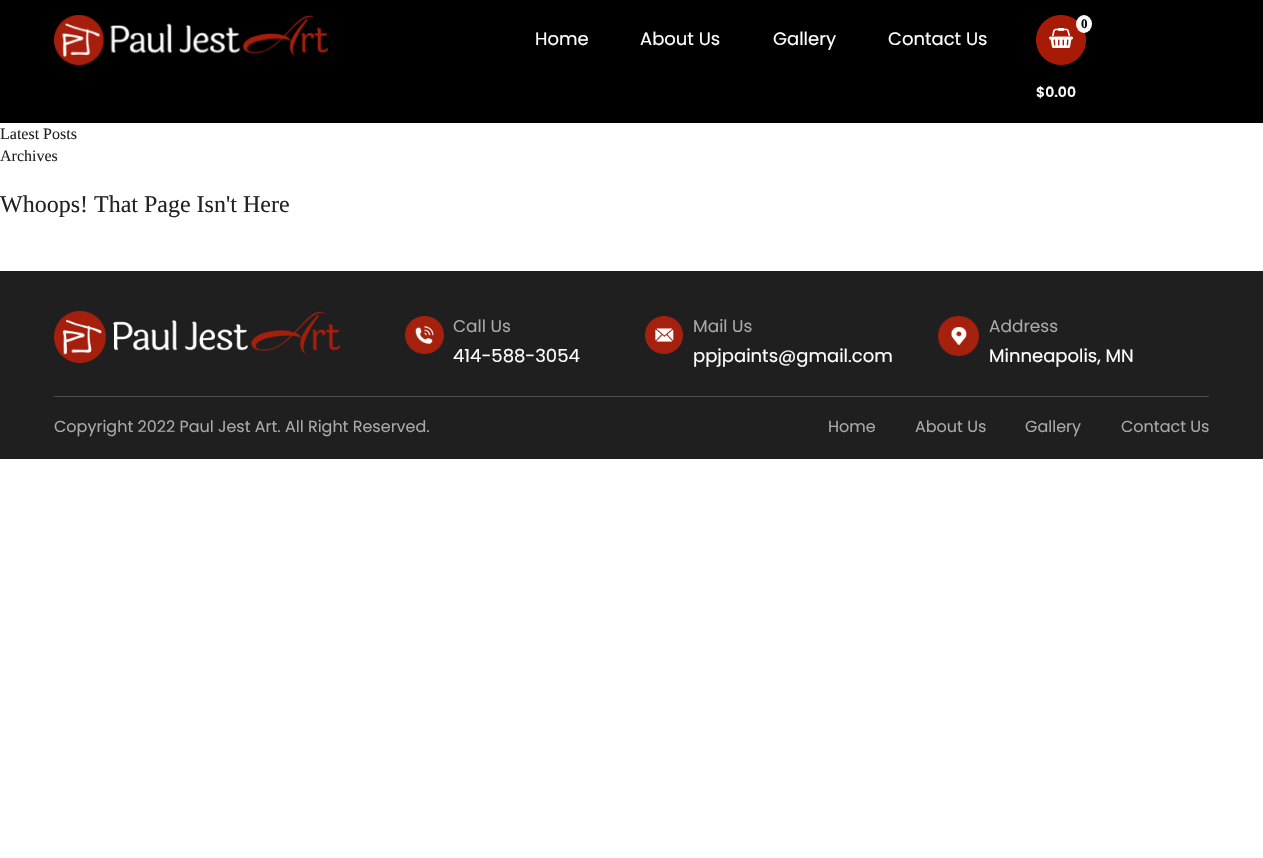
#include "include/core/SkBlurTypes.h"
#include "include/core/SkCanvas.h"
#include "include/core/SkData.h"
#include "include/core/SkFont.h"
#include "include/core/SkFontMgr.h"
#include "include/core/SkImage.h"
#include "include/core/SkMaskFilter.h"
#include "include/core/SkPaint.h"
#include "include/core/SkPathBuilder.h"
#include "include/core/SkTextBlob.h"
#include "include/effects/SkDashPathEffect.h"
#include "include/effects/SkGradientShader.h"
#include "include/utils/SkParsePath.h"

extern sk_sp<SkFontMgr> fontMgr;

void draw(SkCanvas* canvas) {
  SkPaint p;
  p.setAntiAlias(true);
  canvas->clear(SK_ColorWHITE);
  p.setColor(SK_ColorBLACK);
  canvas->drawRect(SkRect::MakeLTRB(0, 0, 1263, 123), p);
  canvas->drawImageRect(SkImages::DeferredFromEncodedData(SkData::MakeFromFileName("images/1.png")), SkRect::MakeLTRB(54, 15, 328, 65), SkSamplingOptions());
  canvas->drawImageRect(SkImages::DeferredFromEncodedData(SkData::MakeFromFileName("images/2.png")), SkRect::MakeLTRB(1036, 15, 1086, 65), SkSamplingOptions());
  p.setColor(SK_ColorWHITE);
  canvas->drawOval(SkRect::MakeLTRB(1076, 15, 1092, 33), p);
  p.setColor(SkColorSetRGB(31, 31, 31));
  canvas->drawRect(SkRect::MakeLTRB(0, 271, 1263, 459), p);
  p.setColor(SkColorSetRGB(76, 76, 76));
  canvas->drawRect(SkRect::MakeLTRB(54, 396, 1209, 397), p);
  canvas->drawImageRect(SkImages::DeferredFromEncodedData(SkData::MakeFromFileName("images/3.png")), SkRect::MakeLTRB(54, 311, 340, 363), SkSamplingOptions());
  canvas->drawImageRect(SkImages::DeferredFromEncodedData(SkData::MakeFromFileName("images/4.png")), SkRect::MakeLTRB(405, 316, 444, 354), SkSamplingOptions());
  canvas->drawImageRect(SkImages::DeferredFromEncodedData(SkData::MakeFromFileName("images/5.png")), SkRect::MakeLTRB(645, 316, 683, 354), SkSamplingOptions());
  canvas->drawImageRect(SkImages::DeferredFromEncodedData(SkData::MakeFromFileName("images/6.png")), SkRect::MakeLTRB(938, 316, 979, 356), SkSamplingOptions());
  SkFont font1(fontMgr->matchFamilyStyle("Poppins", SkFontStyle::Normal()), 18);
  font1.setSubpixel(true);
  p.setColor(SK_ColorWHITE);
  canvas->drawString("Home", 535, 45, font1, p);
  canvas->drawString("About Us", 640, 45, font1, p);
  canvas->drawString("Gallery", 773, 45, font1, p);
  canvas->drawString("Contact Us", 888, 45, font1, p);
  SkFont font2(fontMgr->matchFamilyStyle("Liberation Serif", SkFontStyle::Bold()), 13);
  font2.setSubpixel(true);
  p.setColor(SK_ColorBLACK);
  canvas->drawString("0", 1081, 28, font2, p);
  SkFont font3(fontMgr->matchFamilyStyle("Poppins", SkFontStyle(600, SkFontStyle::kNormal_Width, SkFontStyle::kUpright_Slant)), 14);
  font3.setSubpixel(true);
  p.setColor(SK_ColorWHITE);
  canvas->drawString("$0.00", 1036, 97, font3, p);
  SkFont font4(fontMgr->matchFamilyStyle("Liberation Serif", SkFontStyle::Normal()), 16);
  font4.setSubpixel(true);
  p.setColor(SkColorSetRGB(34, 34, 34));
  canvas->drawString("Latest Posts", 0, 139, font4, p);
  canvas->drawString("Archives", 0, 161, font4, p);
  SkFont font5(fontMgr->matchFamilyStyle("Liberation Serif", SkFontStyle::Normal()), 24);
  font5.setSubpixel(true);
  canvas->drawString("Whoops! That Page Isn't Here", 0, 212, font5, p);
  SkFont font6(fontMgr->matchFamilyStyle("Poppins", SkFontStyle::Normal()), 17);
  font6.setSubpixel(true);
  p.setColor(SkColorSetRGB(169, 169, 169));
  canvas->drawString("Call Us", 453, 332, font6, p);
  p.setColor(SK_ColorWHITE);
  canvas->drawString("414-588-3054", 453, 362, font1, p);
  p.setColor(SkColorSetRGB(169, 169, 169));
  canvas->drawString("Mail Us", 693, 332, font6, p);
  p.setColor(SK_ColorWHITE);
  canvas->drawString("ppjpaints@gmail.com", 693, 362, font1, p);
  p.setColor(SkColorSetRGB(169, 169, 169));
  canvas->drawString("Address", 989, 332, font6, p);
  p.setColor(SK_ColorWHITE);
  canvas->drawString("Minneapolis, MN", 989, 362, font1, p);
  SkFont font7(fontMgr->matchFamilyStyle("Poppins", SkFontStyle::Normal()), 16);
  font7.setSubpixel(true);
  p.setColor(SkColorSetRGB(169, 169, 169));
  canvas->drawString("Copyright 2022 Paul Jest Art. All Right Reserved.", 54, 432, font7, p);
  canvas->drawString("Home", 828, 432, font7, p);
  canvas->drawString("About Us", 915, 432, font7, p);
  canvas->drawString("Gallery", 1025, 432, font7, p);
  canvas->drawString("Contact Us", 1121, 432, font7, p);
}
